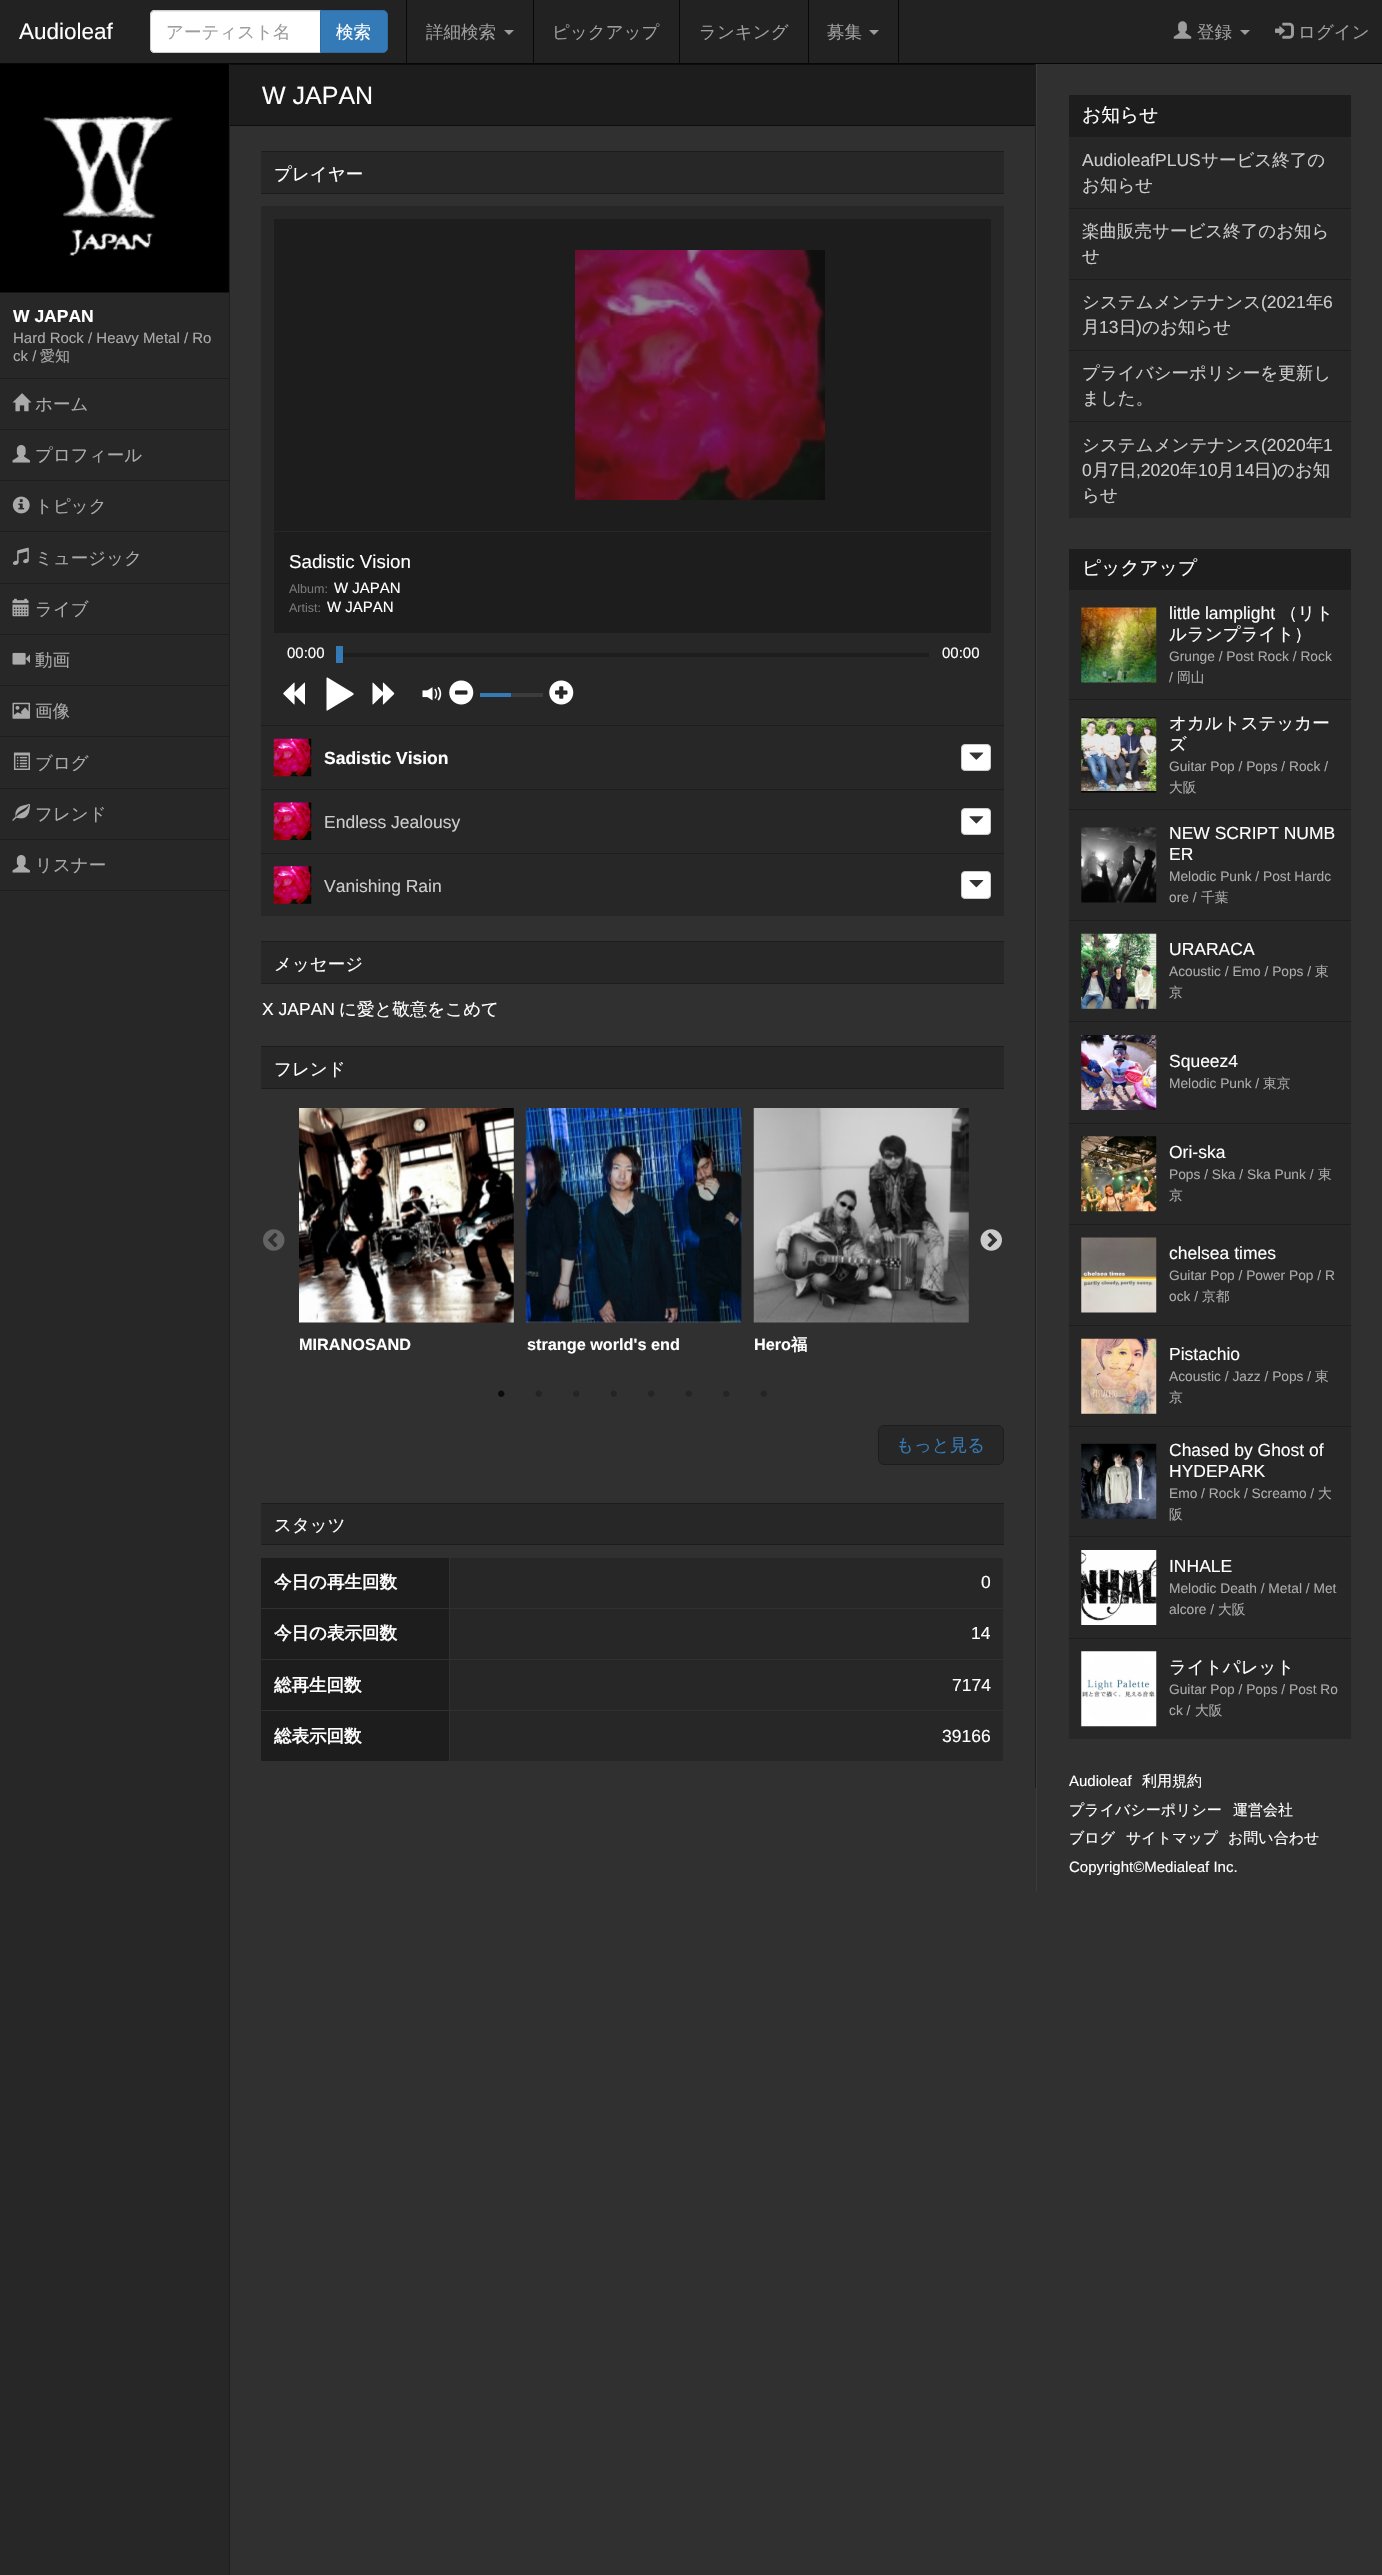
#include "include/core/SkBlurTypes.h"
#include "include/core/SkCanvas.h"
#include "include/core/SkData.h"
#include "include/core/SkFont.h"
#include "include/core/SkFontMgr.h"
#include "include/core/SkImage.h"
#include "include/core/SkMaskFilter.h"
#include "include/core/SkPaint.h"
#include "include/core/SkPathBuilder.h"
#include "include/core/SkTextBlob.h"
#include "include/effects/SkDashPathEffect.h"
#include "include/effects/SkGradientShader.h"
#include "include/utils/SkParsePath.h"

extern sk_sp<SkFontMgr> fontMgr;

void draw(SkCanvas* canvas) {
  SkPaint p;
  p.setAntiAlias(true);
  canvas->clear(SkColorSetRGB(48, 48, 48));
  p.setColor(SkColorSetRGB(34, 34, 34));
  canvas->drawRect(SkRect::MakeLTRB(0, 0, 1382, 63), p);
  p.setColor(SkColorSetRGB(8, 8, 8));
  canvas->drawRect(SkRect::MakeLTRB(0, 63, 1382, 64), p);
  p.setColor(SK_ColorWHITE);
  canvas->drawPath(SkPathBuilder().moveTo(155, 10).lineTo(321, 10).lineTo(321, 53).lineTo(155, 53).cubicTo(152, 53, 150, 51, 150, 48).lineTo(150, 15).cubicTo(150, 12, 152, 10, 155, 10).close().detach(), p);
  p.setColor(SkColorSetRGB(236, 236, 236));
  canvas->drawPath(SkPathBuilder().moveTo(155, 12).lineTo(320, 12).lineTo(320, 11).lineTo(154, 11).cubicTo(152, 12, 151, 14, 151, 16).cubicTo(151, 14, 153, 12, 155, 12).close().detach(), p);
  p.setStyle(SkPaint::kStroke_Style);
  p.setStrokeWidth(1);
  p.setColor(SkColorSetRGB(204, 204, 204));
  canvas->drawPath(SkPathBuilder().moveTo(155, 10.5f).lineTo(320.5f, 10.5f).lineTo(320.5f, 52.5f).lineTo(155, 52.5f).cubicTo(152.5f, 52.5f, 150.5f, 50.5f, 150.5f, 48).lineTo(150.5f, 15).cubicTo(150.5f, 12.5f, 152.5f, 10.5f, 155, 10.5f).close().detach(), p);
  p.setStyle(SkPaint::kFill_Style);
  p.setColor(SkColorSetRGB(51, 122, 183));
  canvas->drawPath(SkPathBuilder().moveTo(320.5f, 10.5f).lineTo(383, 10.5f).cubicTo(385.5f, 10.5f, 387.5f, 12.5f, 387.5f, 15).lineTo(387.5f, 48).cubicTo(387.5f, 50.5f, 385.5f, 52.5f, 383, 52.5f).lineTo(320.5f, 52.5f).close().detach(), p);
  p.setStyle(SkPaint::kStroke_Style);
  p.setColor(SkColorSetRGB(46, 109, 164));
  canvas->drawPath(SkPathBuilder().moveTo(320.5f, 10.5f).lineTo(383, 10.5f).cubicTo(385.5f, 10.5f, 387.5f, 12.5f, 387.5f, 15).lineTo(387.5f, 48).cubicTo(387.5f, 50.5f, 385.5f, 52.5f, 383, 52.5f).lineTo(320.5f, 52.5f).close().detach(), p);
  p.setStyle(SkPaint::kFill_Style);
  p.setColor(SkColorSetRGB(8, 8, 8));
  canvas->drawRect(SkRect::MakeLTRB(406, 0, 407, 63), p);
  canvas->drawRect(SkRect::MakeLTRB(533, 0, 534, 63), p);
  p.setColor(SkColorSetRGB(157, 157, 157));
  canvas->drawPath(SkPathBuilder().moveTo(504, 30).lineTo(514, 30).lineTo(509, 35).close().detach(), p);
  p.setColor(SkColorSetRGB(8, 8, 8));
  canvas->drawRect(SkRect::MakeLTRB(679, 0, 680, 63), p);
  canvas->drawRect(SkRect::MakeLTRB(808, 0, 809, 63), p);
  canvas->drawRect(SkRect::MakeLTRB(898, 0, 899, 63), p);
  p.setColor(SkColorSetRGB(157, 157, 157));
  canvas->drawPath(SkPathBuilder().moveTo(869, 30).lineTo(879, 30).lineTo(874, 35).close().detach(), p);
  canvas->drawImageRect(SkImages::DeferredFromEncodedData(SkData::MakeFromFileName("images/1.png")), SkRect::MakeLTRB(1173, 21, 1192, 39), SkSamplingOptions());
  canvas->drawPath(SkPathBuilder().moveTo(1240, 30).lineTo(1250, 30).lineTo(1245, 35).close().detach(), p);
  canvas->drawImageRect(SkImages::DeferredFromEncodedData(SkData::MakeFromFileName("images/2.png")), SkRect::MakeLTRB(1275, 22, 1294, 39), SkSamplingOptions());
  p.setColor(SkColorSetRGB(39, 39, 39));
  canvas->drawRect(SkRect::MakeLTRB(0, 64, 229, 2575), p);
  p.setColor(SkColorSetRGB(29, 29, 29));
  canvas->drawRect(SkRect::MakeLTRB(229, 64, 230, 2575), p);
  canvas->drawRect(SkRect::MakeLTRB(0, 378, 229, 379), p);
  canvas->drawImageRect(SkImages::DeferredFromEncodedData(SkData::MakeFromFileName("images/3.png")), SkRect::MakeLTRB(0, 64, 229, 293), SkSamplingOptions());
  canvas->drawRect(SkRect::MakeLTRB(0, 429, 229, 430), p);
  canvas->drawImageRect(SkImages::DeferredFromEncodedData(SkData::MakeFromFileName("images/4.png")), SkRect::MakeLTRB(12, 393, 32, 412), SkSamplingOptions());
  canvas->drawRect(SkRect::MakeLTRB(0, 480, 229, 481), p);
  canvas->drawImageRect(SkImages::DeferredFromEncodedData(SkData::MakeFromFileName("images/5.png")), SkRect::MakeLTRB(12, 445, 30, 463), SkSamplingOptions());
  canvas->drawRect(SkRect::MakeLTRB(0, 531, 229, 532), p);
  canvas->drawImageRect(SkImages::DeferredFromEncodedData(SkData::MakeFromFileName("images/6.png")), SkRect::MakeLTRB(12, 496, 30, 514), SkSamplingOptions());
  canvas->drawRect(SkRect::MakeLTRB(0, 583, 229, 584), p);
  canvas->drawImageRect(SkImages::DeferredFromEncodedData(SkData::MakeFromFileName("images/7.png")), SkRect::MakeLTRB(12, 547, 29, 565), SkSamplingOptions());
  canvas->drawRect(SkRect::MakeLTRB(0, 634, 229, 635), p);
  canvas->drawImageRect(SkImages::DeferredFromEncodedData(SkData::MakeFromFileName("images/8.png")), SkRect::MakeLTRB(12, 598, 29, 617), SkSamplingOptions());
  canvas->drawRect(SkRect::MakeLTRB(0, 685, 229, 686), p);
  canvas->drawImageRect(SkImages::DeferredFromEncodedData(SkData::MakeFromFileName("images/9.png")), SkRect::MakeLTRB(12, 652, 30, 665), SkSamplingOptions());
  canvas->drawRect(SkRect::MakeLTRB(0, 736, 229, 737), p);
  canvas->drawImageRect(SkImages::DeferredFromEncodedData(SkData::MakeFromFileName("images/10.png")), SkRect::MakeLTRB(12, 702, 30, 719), SkSamplingOptions());
  canvas->drawRect(SkRect::MakeLTRB(0, 788, 229, 789), p);
  canvas->drawImageRect(SkImages::DeferredFromEncodedData(SkData::MakeFromFileName("images/11.png")), SkRect::MakeLTRB(13, 752, 30, 770), SkSamplingOptions());
  canvas->drawRect(SkRect::MakeLTRB(0, 839, 229, 840), p);
  canvas->drawImageRect(SkImages::DeferredFromEncodedData(SkData::MakeFromFileName("images/12.png")), SkRect::MakeLTRB(12, 803, 30, 821), SkSamplingOptions());
  canvas->drawRect(SkRect::MakeLTRB(0, 890, 229, 891), p);
  canvas->drawImageRect(SkImages::DeferredFromEncodedData(SkData::MakeFromFileName("images/5.png")), SkRect::MakeLTRB(12, 855, 30, 873), SkSamplingOptions());
  canvas->drawRect(SkRect::MakeLTRB(1035, 64, 1036, 1788), p);
  canvas->drawRect(SkRect::MakeLTRB(230, 65, 1035, 125), p);
  p.setColor(SkColorSetRGB(13, 13, 13));
  canvas->drawRect(SkRect::MakeLTRB(230, 64, 1035, 65), p);
  canvas->drawRect(SkRect::MakeLTRB(230, 125, 1035, 126), p);
  p.setColor(SkColorSetRGB(39, 39, 39));
  canvas->drawRect(SkRect::MakeLTRB(261, 152, 1004, 193), p);
  p.setColor(SkColorSetRGB(29, 29, 29));
  canvas->drawRect(SkRect::MakeLTRB(261, 151, 1004, 152), p);
  canvas->drawRect(SkRect::MakeLTRB(261, 193, 1004, 194), p);
  p.setColor(SkColorSetRGB(39, 39, 39));
  canvas->drawRect(SkRect::MakeLTRB(261, 206, 1004, 916), p);
  p.setColor(SkColorSetRGB(29, 29, 29));
  canvas->drawRect(SkRect::MakeLTRB(274, 219, 991, 633), p);
  p.setColor(SkColorSetRGB(39, 39, 39));
  canvas->drawRect(SkRect::MakeLTRB(274, 531, 991, 532), p);
  canvas->drawImageRect(SkImages::DeferredFromEncodedData(SkData::MakeFromFileName("images/13.png")), SkRect::MakeLTRB(575, 250, 825, 500), SkSamplingOptions());
  p.setColor(SkColorSetRGB(29, 29, 29));
  canvas->drawRect(SkRect::MakeLTRB(336, 653, 929, 657), p);
  p.setColor(SkColorSetRGB(51, 122, 183));
  canvas->drawRect(SkRect::MakeLTRB(336, 646, 343, 663), p);
  canvas->drawImageRect(SkImages::DeferredFromEncodedData(SkData::MakeFromFileName("images/14.png")), SkRect::MakeLTRB(283, 682, 305, 705), SkSamplingOptions());
  p.setColor(SK_ColorWHITE);
  canvas->drawPath(SkPathBuilder().moveTo(327.5f, 677.5f).lineTo(349, 690.5f).cubicTo(355.5f, 694.5f, 355.5f, 693.5f, 349, 697.5f).lineTo(327.5f, 710.5f).lineTo(326.5f, 710.5f).lineTo(326.5f, 678).cubicTo(326.5f, 677.5f, 327, 677.5f, 327.5f, 677.5f).close().detach(), p);
  canvas->drawImageRect(SkImages::DeferredFromEncodedData(SkData::MakeFromFileName("images/15.png")), SkRect::MakeLTRB(372, 682, 395, 705), SkSamplingOptions());
  canvas->drawImageRect(SkImages::DeferredFromEncodedData(SkData::MakeFromFileName("images/16.png")), SkRect::MakeLTRB(422, 687, 442, 701), SkSamplingOptions());
  canvas->drawImageRect(SkImages::DeferredFromEncodedData(SkData::MakeFromFileName("images/17.png")), SkRect::MakeLTRB(449, 680, 474, 705), SkSamplingOptions());
  p.setColor(SkColorSetRGB(51, 122, 183));
  canvas->drawRect(SkRect::MakeLTRB(480, 693, 511, 697), p);
  p.setColor(SkColorSetRGB(59, 59, 59));
  canvas->drawRect(SkRect::MakeLTRB(511, 693, 543, 697), p);
  canvas->drawImageRect(SkImages::DeferredFromEncodedData(SkData::MakeFromFileName("images/18.png")), SkRect::MakeLTRB(549, 680, 574, 705), SkSamplingOptions());
  p.setColor(SkColorSetRGB(29, 29, 29));
  canvas->drawRect(SkRect::MakeLTRB(261, 725, 1004, 726), p);
  canvas->drawImageRect(SkImages::DeferredFromEncodedData(SkData::MakeFromFileName("images/19.png")), SkRect::MakeLTRB(273, 738, 312, 777), SkSamplingOptions());
  p.setColor(SK_ColorWHITE);
  canvas->drawRoundRect(SkRect::MakeLTRB(961.5f, 744.5f, 990.5f, 770.5f), 3.5f, 3.5f, p);
  p.setStyle(SkPaint::kStroke_Style);
  p.setColor(SkColorSetRGB(204, 204, 204));
  canvas->drawRoundRect(SkRect::MakeLTRB(961.5f, 744.5f, 990.5f, 770.5f), 3.5f, 3.5f, p);
  canvas->drawImageRect(SkImages::DeferredFromEncodedData(SkData::MakeFromFileName("images/20.png")), SkRect::MakeLTRB(969, 752, 984, 760), SkSamplingOptions());
  p.setStyle(SkPaint::kFill_Style);
  p.setColor(SkColorSetRGB(29, 29, 29));
  canvas->drawRect(SkRect::MakeLTRB(261, 789, 1004, 790), p);
  canvas->drawImageRect(SkImages::DeferredFromEncodedData(SkData::MakeFromFileName("images/21.png")), SkRect::MakeLTRB(273, 802, 312, 840), SkSamplingOptions());
  p.setColor(SK_ColorWHITE);
  canvas->drawRoundRect(SkRect::MakeLTRB(961.5f, 808.5f, 990.5f, 834.5f), 3.5f, 3.5f, p);
  p.setStyle(SkPaint::kStroke_Style);
  p.setColor(SkColorSetRGB(204, 204, 204));
  canvas->drawRoundRect(SkRect::MakeLTRB(961.5f, 808.5f, 990.5f, 834.5f), 3.5f, 3.5f, p);
  canvas->drawImageRect(SkImages::DeferredFromEncodedData(SkData::MakeFromFileName("images/22.png")), SkRect::MakeLTRB(969, 816, 984, 824), SkSamplingOptions());
  p.setStyle(SkPaint::kFill_Style);
  p.setColor(SkColorSetRGB(29, 29, 29));
  canvas->drawRect(SkRect::MakeLTRB(261, 853, 1004, 854), p);
  canvas->drawImageRect(SkImages::DeferredFromEncodedData(SkData::MakeFromFileName("images/23.png")), SkRect::MakeLTRB(273, 866, 312, 904), SkSamplingOptions());
  p.setColor(SK_ColorWHITE);
  canvas->drawRoundRect(SkRect::MakeLTRB(961.5f, 871.5f, 990.5f, 898.5f), 3.5f, 3.5f, p);
  p.setStyle(SkPaint::kStroke_Style);
  p.setColor(SkColorSetRGB(204, 204, 204));
  canvas->drawRoundRect(SkRect::MakeLTRB(961.5f, 871.5f, 990.5f, 898.5f), 3.5f, 3.5f, p);
  canvas->drawImageRect(SkImages::DeferredFromEncodedData(SkData::MakeFromFileName("images/24.png")), SkRect::MakeLTRB(969, 880, 984, 888), SkSamplingOptions());
  p.setStyle(SkPaint::kFill_Style);
  p.setColor(SkColorSetRGB(39, 39, 39));
  canvas->drawRect(SkRect::MakeLTRB(261, 942, 1004, 983), p);
  p.setColor(SkColorSetRGB(29, 29, 29));
  canvas->drawRect(SkRect::MakeLTRB(261, 941, 1004, 942), p);
  canvas->drawRect(SkRect::MakeLTRB(261, 983, 1004, 984), p);
  p.setColor(SkColorSetRGB(39, 39, 39));
  canvas->drawRect(SkRect::MakeLTRB(261, 1047, 1004, 1088), p);
  p.setColor(SkColorSetRGB(29, 29, 29));
  canvas->drawRect(SkRect::MakeLTRB(261, 1046, 1004, 1047), p);
  canvas->drawRect(SkRect::MakeLTRB(261, 1088, 1004, 1089), p);
  canvas->drawImageRect(SkImages::DeferredFromEncodedData(SkData::MakeFromFileName("images/25.png")), SkRect::MakeLTRB(263, 1229, 285, 1251), SkSamplingOptions());
  canvas->drawImageRect(SkImages::DeferredFromEncodedData(SkData::MakeFromFileName("images/26.png")), SkRect::MakeLTRB(980, 1229, 1002, 1251), SkSamplingOptions());
  canvas->drawImageRect(SkImages::DeferredFromEncodedData(SkData::MakeFromFileName("images/27.png")), SkRect::MakeLTRB(299, 1108, 514, 1323), SkSamplingOptions());
  canvas->drawImageRect(SkImages::DeferredFromEncodedData(SkData::MakeFromFileName("images/28.png")), SkRect::MakeLTRB(525, 1108, 742, 1323), SkSamplingOptions());
  canvas->drawImageRect(SkImages::DeferredFromEncodedData(SkData::MakeFromFileName("images/29.png")), SkRect::MakeLTRB(753, 1108, 969, 1323), SkSamplingOptions());
  canvas->drawImageRect(SkImages::DeferredFromEncodedData(SkData::MakeFromFileName("images/30.png")), SkRect::MakeLTRB(498, 1390, 505, 1397), SkSamplingOptions());
  canvas->drawImageRect(SkImages::DeferredFromEncodedData(SkData::MakeFromFileName("images/31.png")), SkRect::MakeLTRB(535, 1390, 542, 1397), SkSamplingOptions());
  canvas->drawImageRect(SkImages::DeferredFromEncodedData(SkData::MakeFromFileName("images/32.png")), SkRect::MakeLTRB(573, 1390, 580, 1397), SkSamplingOptions());
  canvas->drawImageRect(SkImages::DeferredFromEncodedData(SkData::MakeFromFileName("images/31.png")), SkRect::MakeLTRB(610, 1390, 617, 1397), SkSamplingOptions());
  canvas->drawImageRect(SkImages::DeferredFromEncodedData(SkData::MakeFromFileName("images/32.png")), SkRect::MakeLTRB(648, 1390, 655, 1397), SkSamplingOptions());
  canvas->drawImageRect(SkImages::DeferredFromEncodedData(SkData::MakeFromFileName("images/31.png")), SkRect::MakeLTRB(685, 1390, 692, 1397), SkSamplingOptions());
  canvas->drawImageRect(SkImages::DeferredFromEncodedData(SkData::MakeFromFileName("images/32.png")), SkRect::MakeLTRB(723, 1390, 730, 1397), SkSamplingOptions());
  canvas->drawImageRect(SkImages::DeferredFromEncodedData(SkData::MakeFromFileName("images/31.png")), SkRect::MakeLTRB(760, 1390, 767, 1397), SkSamplingOptions());
  p.setColor(SkColorSetRGB(39, 39, 39));
  canvas->drawRoundRect(SkRect::MakeLTRB(878.5f, 1425.5f, 1003.5f, 1464.5f), 5.5f, 5.5f, p);
  p.setStyle(SkPaint::kStroke_Style);
  p.setColor(SkColorSetRGB(29, 29, 29));
  canvas->drawRoundRect(SkRect::MakeLTRB(878.5f, 1425.5f, 1003.5f, 1464.5f), 5.5f, 5.5f, p);
  p.setStyle(SkPaint::kFill_Style);
  p.setColor(SkColorSetRGB(39, 39, 39));
  canvas->drawRect(SkRect::MakeLTRB(261, 1504, 1004, 1544), p);
  p.setColor(SkColorSetRGB(29, 29, 29));
  canvas->drawRect(SkRect::MakeLTRB(261, 1503, 1004, 1504), p);
  canvas->drawRect(SkRect::MakeLTRB(261, 1544, 1004, 1545), p);
  canvas->drawRect(SkRect::MakeLTRB(261, 1558, 449, 1608), p);
  p.setColor(SkColorSetRGB(39, 39, 39));
  canvas->drawRect(SkRect::MakeLTRB(450, 1558, 1003, 1608), p);
  p.setColor(SkColorSetRGB(29, 29, 29));
  canvas->drawRect(SkRect::MakeLTRB(261, 1609, 449, 1659), p);
  p.setColor(SkColorSetRGB(39, 39, 39));
  canvas->drawRect(SkRect::MakeLTRB(450, 1609, 1003, 1659), p);
  p.setColor(SkColorSetRGB(29, 29, 29));
  canvas->drawRect(SkRect::MakeLTRB(261, 1660, 449, 1710), p);
  p.setColor(SkColorSetRGB(39, 39, 39));
  canvas->drawRect(SkRect::MakeLTRB(450, 1660, 1003, 1710), p);
  p.setColor(SkColorSetRGB(29, 29, 29));
  canvas->drawRect(SkRect::MakeLTRB(261, 1711, 449, 1761), p);
  p.setColor(SkColorSetRGB(39, 39, 39));
  canvas->drawRect(SkRect::MakeLTRB(450, 1711, 1003, 1761), p);
  p.setColor(SkColorSetRGB(59, 59, 59));
  canvas->drawRect(SkRect::MakeLTRB(1036, 64, 1037, 1891), p);
  p.setColor(SkColorSetRGB(29, 29, 29));
  canvas->drawRect(SkRect::MakeLTRB(1069, 95, 1351, 137), p);
  p.setColor(SkColorSetRGB(39, 39, 39));
  canvas->drawRect(SkRect::MakeLTRB(1069, 137, 1351, 208), p);
  canvas->drawRect(SkRect::MakeLTRB(1069, 209, 1351, 279), p);
  p.setColor(SkColorSetRGB(29, 29, 29));
  canvas->drawRect(SkRect::MakeLTRB(1069, 208, 1351, 209), p);
  p.setColor(SkColorSetRGB(39, 39, 39));
  canvas->drawRect(SkRect::MakeLTRB(1069, 280, 1351, 350), p);
  p.setColor(SkColorSetRGB(29, 29, 29));
  canvas->drawRect(SkRect::MakeLTRB(1069, 279, 1351, 280), p);
  p.setColor(SkColorSetRGB(39, 39, 39));
  canvas->drawRect(SkRect::MakeLTRB(1069, 351, 1351, 421), p);
  p.setColor(SkColorSetRGB(29, 29, 29));
  canvas->drawRect(SkRect::MakeLTRB(1069, 350, 1351, 351), p);
  p.setColor(SkColorSetRGB(39, 39, 39));
  canvas->drawRect(SkRect::MakeLTRB(1069, 422, 1351, 518), p);
  p.setColor(SkColorSetRGB(29, 29, 29));
  canvas->drawRect(SkRect::MakeLTRB(1069, 421, 1351, 422), p);
  canvas->drawRect(SkRect::MakeLTRB(1069, 549, 1351, 590), p);
  p.setColor(SkColorSetRGB(39, 39, 39));
  canvas->drawRect(SkRect::MakeLTRB(1069, 590, 1351, 699), p);
  canvas->drawImageRect(SkImages::DeferredFromEncodedData(SkData::MakeFromFileName("images/33.png")), SkRect::MakeLTRB(1081, 607, 1157, 683), SkSamplingOptions());
  canvas->drawRect(SkRect::MakeLTRB(1069, 700, 1351, 809), p);
  p.setColor(SkColorSetRGB(29, 29, 29));
  canvas->drawRect(SkRect::MakeLTRB(1069, 699, 1351, 700), p);
  canvas->drawImageRect(SkImages::DeferredFromEncodedData(SkData::MakeFromFileName("images/34.png")), SkRect::MakeLTRB(1081, 717, 1157, 793), SkSamplingOptions());
  p.setColor(SkColorSetRGB(39, 39, 39));
  canvas->drawRect(SkRect::MakeLTRB(1069, 810, 1351, 920), p);
  p.setColor(SkColorSetRGB(29, 29, 29));
  canvas->drawRect(SkRect::MakeLTRB(1069, 809, 1351, 810), p);
  canvas->drawImageRect(SkImages::DeferredFromEncodedData(SkData::MakeFromFileName("images/35.png")), SkRect::MakeLTRB(1081, 827, 1157, 903), SkSamplingOptions());
  p.setColor(SkColorSetRGB(39, 39, 39));
  canvas->drawRect(SkRect::MakeLTRB(1069, 921, 1351, 1021), p);
  p.setColor(SkColorSetRGB(29, 29, 29));
  canvas->drawRect(SkRect::MakeLTRB(1069, 920, 1351, 921), p);
  canvas->drawImageRect(SkImages::DeferredFromEncodedData(SkData::MakeFromFileName("images/36.png")), SkRect::MakeLTRB(1081, 933, 1157, 1009), SkSamplingOptions());
  p.setColor(SkColorSetRGB(39, 39, 39));
  canvas->drawRect(SkRect::MakeLTRB(1069, 1022, 1351, 1123), p);
  p.setColor(SkColorSetRGB(29, 29, 29));
  canvas->drawRect(SkRect::MakeLTRB(1069, 1021, 1351, 1022), p);
  canvas->drawImageRect(SkImages::DeferredFromEncodedData(SkData::MakeFromFileName("images/37.png")), SkRect::MakeLTRB(1081, 1035, 1157, 1110), SkSamplingOptions());
  p.setColor(SkColorSetRGB(39, 39, 39));
  canvas->drawRect(SkRect::MakeLTRB(1069, 1124, 1351, 1224), p);
  p.setColor(SkColorSetRGB(29, 29, 29));
  canvas->drawRect(SkRect::MakeLTRB(1069, 1123, 1351, 1124), p);
  canvas->drawImageRect(SkImages::DeferredFromEncodedData(SkData::MakeFromFileName("images/38.png")), SkRect::MakeLTRB(1081, 1136, 1157, 1212), SkSamplingOptions());
  p.setColor(SkColorSetRGB(39, 39, 39));
  canvas->drawRect(SkRect::MakeLTRB(1069, 1225, 1351, 1325), p);
  p.setColor(SkColorSetRGB(29, 29, 29));
  canvas->drawRect(SkRect::MakeLTRB(1069, 1224, 1351, 1225), p);
  canvas->drawImageRect(SkImages::DeferredFromEncodedData(SkData::MakeFromFileName("images/39.png")), SkRect::MakeLTRB(1081, 1237, 1157, 1313), SkSamplingOptions());
  p.setColor(SkColorSetRGB(39, 39, 39));
  canvas->drawRect(SkRect::MakeLTRB(1069, 1326, 1351, 1426), p);
  p.setColor(SkColorSetRGB(29, 29, 29));
  canvas->drawRect(SkRect::MakeLTRB(1069, 1325, 1351, 1326), p);
  canvas->drawImageRect(SkImages::DeferredFromEncodedData(SkData::MakeFromFileName("images/40.png")), SkRect::MakeLTRB(1081, 1338, 1157, 1414), SkSamplingOptions());
  p.setColor(SkColorSetRGB(39, 39, 39));
  canvas->drawRect(SkRect::MakeLTRB(1069, 1427, 1351, 1536), p);
  p.setColor(SkColorSetRGB(29, 29, 29));
  canvas->drawRect(SkRect::MakeLTRB(1069, 1426, 1351, 1427), p);
  canvas->drawImageRect(SkImages::DeferredFromEncodedData(SkData::MakeFromFileName("images/41.png")), SkRect::MakeLTRB(1081, 1443, 1157, 1519), SkSamplingOptions());
  p.setColor(SkColorSetRGB(39, 39, 39));
  canvas->drawRect(SkRect::MakeLTRB(1069, 1537, 1351, 1638), p);
  p.setColor(SkColorSetRGB(29, 29, 29));
  canvas->drawRect(SkRect::MakeLTRB(1069, 1536, 1351, 1537), p);
  canvas->drawImageRect(SkImages::DeferredFromEncodedData(SkData::MakeFromFileName("images/42.png")), SkRect::MakeLTRB(1081, 1550, 1157, 1625), SkSamplingOptions());
  p.setColor(SkColorSetRGB(39, 39, 39));
  canvas->drawRect(SkRect::MakeLTRB(1069, 1639, 1351, 1739), p);
  p.setColor(SkColorSetRGB(29, 29, 29));
  canvas->drawRect(SkRect::MakeLTRB(1069, 1638, 1351, 1639), p);
  canvas->drawImageRect(SkImages::DeferredFromEncodedData(SkData::MakeFromFileName("images/43.png")), SkRect::MakeLTRB(1081, 1651, 1157, 1727), SkSamplingOptions());
  SkFont font1(fontMgr->matchFamilyStyle("Liberation Sans", SkFontStyle::Normal()), 22.5f);
  font1.setSubpixel(true);
  p.setColor(SK_ColorWHITE);
  canvas->drawString("Audioleaf", 19, 39, font1, p);
  SkFont font2(fontMgr->matchFamilyStyle("WenQuanYi Zen Hei", SkFontStyle(500, SkFontStyle::kNormal_Width, SkFontStyle::kUpright_Slant)), 17.5f);
  font2.setSubpixel(true);
  p.setColor(SkColorSetRGB(157, 157, 157));
  canvas->drawString("アーティスト名", 166, 38, font2, p);
  p.setColor(SK_ColorWHITE);
  canvas->drawString("検索", 336, 38, font2, p);
  p.setColor(SkColorSetRGB(157, 157, 157));
  canvas->drawString("詳細検索", 426, 38, font2, p);
  canvas->drawString("ピックアップ", 552, 38, font2, p);
  canvas->drawString("ランキング", 699, 38, font2, p);
  canvas->drawString("募集", 827, 38, font2, p);
  canvas->drawString("登録", 1197, 38, font2, p);
  canvas->drawString("ログイン", 1298, 38, font2, p);
  SkFont font3(fontMgr->matchFamilyStyle("Liberation Sans", SkFontStyle::Bold()), 17.5f);
  font3.setSubpixel(true);
  p.setColor(SK_ColorWHITE);
  canvas->drawString("W JAPAN", 13, 322, font3, p);
  SkFont font4(fontMgr->matchFamilyStyle("Liberation Sans", SkFontStyle::Normal()), 15);
  font4.setSubpixel(true);
  p.setColor(SkColorSetRGB(170, 170, 170));
  canvas->drawString("Hard Rock / Heavy Metal / Ro", 13, 343, font4, p);
  canvas->drawString("ck /", 13, 361, font4, p);
  SkFont font5(fontMgr->matchFamilyStyle("WenQuanYi Zen Hei", SkFontStyle(500, SkFontStyle::kNormal_Width, SkFontStyle::kUpright_Slant)), 15);
  font5.setSubpixel(true);
  canvas->drawString("愛知", 40, 361, font5, p);
  canvas->drawString("ホーム", 35, 410, font2, p);
  canvas->drawString("プロフィール", 35, 461, font2, p);
  canvas->drawString("トピック", 35, 512, font2, p);
  canvas->drawString("ミュージック", 35, 564, font2, p);
  canvas->drawString("ライブ", 35, 615, font2, p);
  canvas->drawString("動画", 35, 666, font2, p);
  canvas->drawString("画像", 35, 717, font2, p);
  canvas->drawString("ブログ", 35, 769, font2, p);
  canvas->drawString("フレンド", 35, 820, font2, p);
  canvas->drawString("リスナー", 35, 871, font2, p);
  SkFont font6(fontMgr->matchFamilyStyle("Liberation Sans", SkFontStyle::Normal()), 25);
  font6.setSubpixel(true);
  p.setColor(SK_ColorWHITE);
  canvas->drawString("W JAPAN", 262, 104, font6, p);
  canvas->drawString("プレイヤー", 274, 180, font2, p);
  SkFont font7(fontMgr->matchFamilyStyle("Liberation Sans", SkFontStyle::Normal()), 18.75f);
  font7.setSubpixel(true);
  canvas->drawString("Sadistic Vision", 289, 568, font7, p);
  SkFont font8(fontMgr->matchFamilyStyle("Liberation Sans", SkFontStyle::Normal()), 12.5f);
  font8.setSubpixel(true);
  p.setColor(SkColorSetRGB(119, 119, 119));
  canvas->drawString("Album:", 289, 593, font8, p);
  p.setColor(SK_ColorWHITE);
  canvas->drawString("W JAPAN", 334, 593, font4, p);
  p.setColor(SkColorSetRGB(119, 119, 119));
  canvas->drawString("Artist:", 289, 612, font8, p);
  p.setColor(SK_ColorWHITE);
  canvas->drawString("W JAPAN", 327, 612, font4, p);
  canvas->drawString("00:00", 287, 658, font4, p);
  canvas->drawString("00:00", 942, 658, font4, p);
  canvas->drawString("Sadistic Vision", 324, 764, font3, p);
  SkFont font9(fontMgr->matchFamilyStyle("Liberation Sans", SkFontStyle::Normal()), 17.5f);
  font9.setSubpixel(true);
  p.setColor(SkColorSetRGB(204, 204, 204));
  canvas->drawString("Endless Jealousy", 324, 828, font9, p);
  canvas->drawString("Vanishing Rain", 324, 892, font9, p);
  p.setColor(SK_ColorWHITE);
  canvas->drawString("メッセージ", 274, 970, font2, p);
  canvas->drawString("X JAPAN", 262, 1015, font9, p);
  canvas->drawString("に愛と敬意をこめて", 339, 1015, font2, p);
  canvas->drawString("フレンド", 274, 1075, font2, p);
  SkFont font10(fontMgr->matchFamilyStyle("Liberation Sans", SkFontStyle::Bold()), 16.25f);
  font10.setSubpixel(true);
  canvas->drawString("MIRANOSAND", 299, 1350, font10, p);
  canvas->drawString("strange world's end", 527, 1350, font10, p);
  canvas->drawString("Hero", 754, 1350, font10, p);
  SkFont font11(fontMgr->matchFamilyStyle("WenQuanYi Zen Hei", SkFontStyle::Bold()), 16.25f);
  font11.setSubpixel(true);
  canvas->drawString("福", 791, 1350, font11, p);
  p.setColor(SkColorSetRGB(51, 122, 183));
  canvas->drawString("もっと見る", 896, 1451, font2, p);
  p.setColor(SK_ColorWHITE);
  canvas->drawString("スタッツ", 274, 1531, font2, p);
  SkFont font12(fontMgr->matchFamilyStyle("WenQuanYi Zen Hei", SkFontStyle::Bold()), 17.5f);
  font12.setSubpixel(true);
  canvas->drawString("今日の再生回数", 274, 1588, font12, p);
  canvas->drawString("0", 981, 1588, font9, p);
  canvas->drawString("今日の表示回数", 274, 1639, font12, p);
  canvas->drawString("14", 971, 1639, font9, p);
  canvas->drawString("総再生回数", 274, 1691, font12, p);
  canvas->drawString("7174", 952, 1691, font9, p);
  canvas->drawString("総表示回数", 274, 1742, font12, p);
  canvas->drawString("39166", 942, 1742, font9, p);
  SkFont font13(fontMgr->matchFamilyStyle("WenQuanYi Zen Hei", SkFontStyle(500, SkFontStyle::kNormal_Width, SkFontStyle::kUpright_Slant)), 18.75f);
  font13.setSubpixel(true);
  canvas->drawString("お知らせ", 1082, 121, font13, p);
  p.setColor(SkColorSetRGB(204, 204, 204));
  canvas->drawString("AudioleafPLUS", 1082, 166, font9, p);
  canvas->drawString("サービス終了の", 1201, 166, font2, p);
  canvas->drawString("お知らせ", 1082, 191, font2, p);
  canvas->drawString("楽曲販売サービス終了のお知ら", 1082, 237, font2, p);
  canvas->drawString("せ", 1082, 262, font2, p);
  canvas->drawString("システムメンテナンス", 1082, 308, font2, p);
  canvas->drawString("(2021", 1261, 308, font9, p);
  canvas->drawString("年", 1306, 308, font2, p);
  canvas->drawString("6", 1323, 308, font9, p);
  canvas->drawString("月", 1082, 333, font2, p);
  canvas->drawString("13", 1099, 333, font9, p);
  canvas->drawString("日", 1119, 333, font2, p);
  canvas->drawString(")", 1136, 333, font9, p);
  canvas->drawString("のお知らせ", 1142, 333, font2, p);
  canvas->drawString("プライバシーポリシーを更新し", 1082, 379, font2, p);
  canvas->drawString("ました。", 1082, 404, font2, p);
  canvas->drawString("システムメンテナンス", 1082, 451, font2, p);
  canvas->drawString("(2020", 1261, 451, font9, p);
  canvas->drawString("年", 1306, 451, font2, p);
  canvas->drawString("1", 1323, 451, font9, p);
  canvas->drawString("0", 1082, 476, font9, p);
  canvas->drawString("月", 1092, 476, font2, p);
  canvas->drawString("7", 1109, 476, font9, p);
  canvas->drawString("日", 1119, 476, font2, p);
  canvas->drawString(",2020", 1136, 476, font9, p);
  canvas->drawString("年", 1180, 476, font2, p);
  canvas->drawString("10", 1198, 476, font9, p);
  canvas->drawString("月", 1217, 476, font2, p);
  canvas->drawString("14", 1235, 476, font9, p);
  canvas->drawString("日", 1254, 476, font2, p);
  canvas->drawString(")", 1272, 476, font9, p);
  canvas->drawString("のお知", 1277, 476, font2, p);
  canvas->drawString("らせ", 1082, 501, font2, p);
  p.setColor(SK_ColorWHITE);
  canvas->drawString("ピックアップ", 1082, 574, font13, p);
  canvas->drawString("little lamplight", 1169, 619, font9, p);
  canvas->drawString("（リト", 1280, 619, font2, p);
  canvas->drawString("ルランプライト）", 1169, 640, font2, p);
  SkFont font14(fontMgr->matchFamilyStyle("Liberation Sans", SkFontStyle::Normal()), 13.75f);
  font14.setSubpixel(true);
  p.setColor(SkColorSetRGB(170, 170, 170));
  canvas->drawString("Grunge / Post Rock / Rock", 1169, 661, font14, p);
  canvas->drawString("/", 1169, 682, font14, p);
  SkFont font15(fontMgr->matchFamilyStyle("WenQuanYi Zen Hei", SkFontStyle(500, SkFontStyle::kNormal_Width, SkFontStyle::kUpright_Slant)), 13.75f);
  font15.setSubpixel(true);
  canvas->drawString("岡山", 1177, 682, font15, p);
  p.setColor(SK_ColorWHITE);
  canvas->drawString("オカルトステッカー", 1169, 729, font2, p);
  canvas->drawString("ズ", 1169, 750, font2, p);
  p.setColor(SkColorSetRGB(170, 170, 170));
  canvas->drawString("Guitar Pop / Pops / Rock /", 1169, 771, font14, p);
  canvas->drawString("大阪", 1169, 792, font15, p);
  p.setColor(SK_ColorWHITE);
  canvas->drawString("NEW SCRIPT NUMB", 1169, 839, font9, p);
  canvas->drawString("ER", 1169, 860, font9, p);
  p.setColor(SkColorSetRGB(170, 170, 170));
  canvas->drawString("Melodic Punk / Post Hardc", 1169, 881, font14, p);
  canvas->drawString("ore /", 1169, 902, font14, p);
  canvas->drawString("千葉", 1201, 902, font15, p);
  p.setColor(SK_ColorWHITE);
  canvas->drawString("URARACA", 1169, 955, font9, p);
  p.setColor(SkColorSetRGB(170, 170, 170));
  canvas->drawString("Acoustic / Emo / Pops /", 1169, 976, font14, p);
  canvas->drawString("東", 1315, 976, font15, p);
  canvas->drawString("京", 1169, 997, font15, p);
  p.setColor(SK_ColorWHITE);
  canvas->drawString("Squeez4", 1169, 1067, font9, p);
  p.setColor(SkColorSetRGB(170, 170, 170));
  canvas->drawString("Melodic Punk /", 1169, 1088, font14, p);
  canvas->drawString("東京", 1263, 1088, font15, p);
  p.setColor(SK_ColorWHITE);
  canvas->drawString("Ori-ska", 1169, 1158, font9, p);
  p.setColor(SkColorSetRGB(170, 170, 170));
  canvas->drawString("Pops / Ska / Ska Punk /", 1169, 1179, font14, p);
  canvas->drawString("東", 1318, 1179, font15, p);
  canvas->drawString("京", 1169, 1200, font15, p);
  p.setColor(SK_ColorWHITE);
  canvas->drawString("chelsea times", 1169, 1259, font9, p);
  p.setColor(SkColorSetRGB(170, 170, 170));
  canvas->drawString("Guitar Pop / Power Pop / R", 1169, 1280, font14, p);
  canvas->drawString("ock /", 1169, 1301, font14, p);
  canvas->drawString("京都", 1202, 1301, font15, p);
  p.setColor(SK_ColorWHITE);
  canvas->drawString("Pistachio", 1169, 1360, font9, p);
  p.setColor(SkColorSetRGB(170, 170, 170));
  canvas->drawString("Acoustic / Jazz / Pops /", 1169, 1381, font14, p);
  canvas->drawString("東", 1315, 1381, font15, p);
  canvas->drawString("京", 1169, 1402, font15, p);
  p.setColor(SK_ColorWHITE);
  canvas->drawString("Chased by Ghost of", 1169, 1456, font9, p);
  canvas->drawString("HYDEPARK", 1169, 1477, font9, p);
  p.setColor(SkColorSetRGB(170, 170, 170));
  canvas->drawString("Emo / Rock / Screamo /", 1169, 1498, font14, p);
  canvas->drawString("大", 1318, 1498, font15, p);
  canvas->drawString("阪", 1169, 1519, font15, p);
  p.setColor(SK_ColorWHITE);
  canvas->drawString("INHALE", 1169, 1572, font9, p);
  p.setColor(SkColorSetRGB(170, 170, 170));
  canvas->drawString("Melodic Death / Metal / Met", 1169, 1593, font14, p);
  canvas->drawString("alcore /", 1169, 1614, font14, p);
  canvas->drawString("大阪", 1218, 1614, font15, p);
  p.setColor(SK_ColorWHITE);
  canvas->drawString("ライトパレット", 1169, 1673, font2, p);
  p.setColor(SkColorSetRGB(170, 170, 170));
  canvas->drawString("Guitar Pop / Pops / Post Ro", 1169, 1694, font14, p);
  canvas->drawString("ck /", 1169, 1715, font14, p);
  canvas->drawString("大阪", 1195, 1715, font15, p);
  p.setColor(SK_ColorWHITE);
  canvas->drawString("Audioleaf", 1069, 1786, font4, p);
  canvas->drawString("利用規約", 1142, 1786, font5, p);
  canvas->drawString("プライバシーポリシー", 1069, 1815, font5, p);
  canvas->drawString("運営会社", 1233, 1815, font5, p);
  canvas->drawString("ブログ", 1069, 1843, font5, p);
  canvas->drawString("サイトマップ", 1126, 1843, font5, p);
  canvas->drawString("お問い合わせ", 1228, 1843, font5, p);
  canvas->drawString("Copyright©Medialeaf Inc.", 1069, 1872, font4, p);
}
